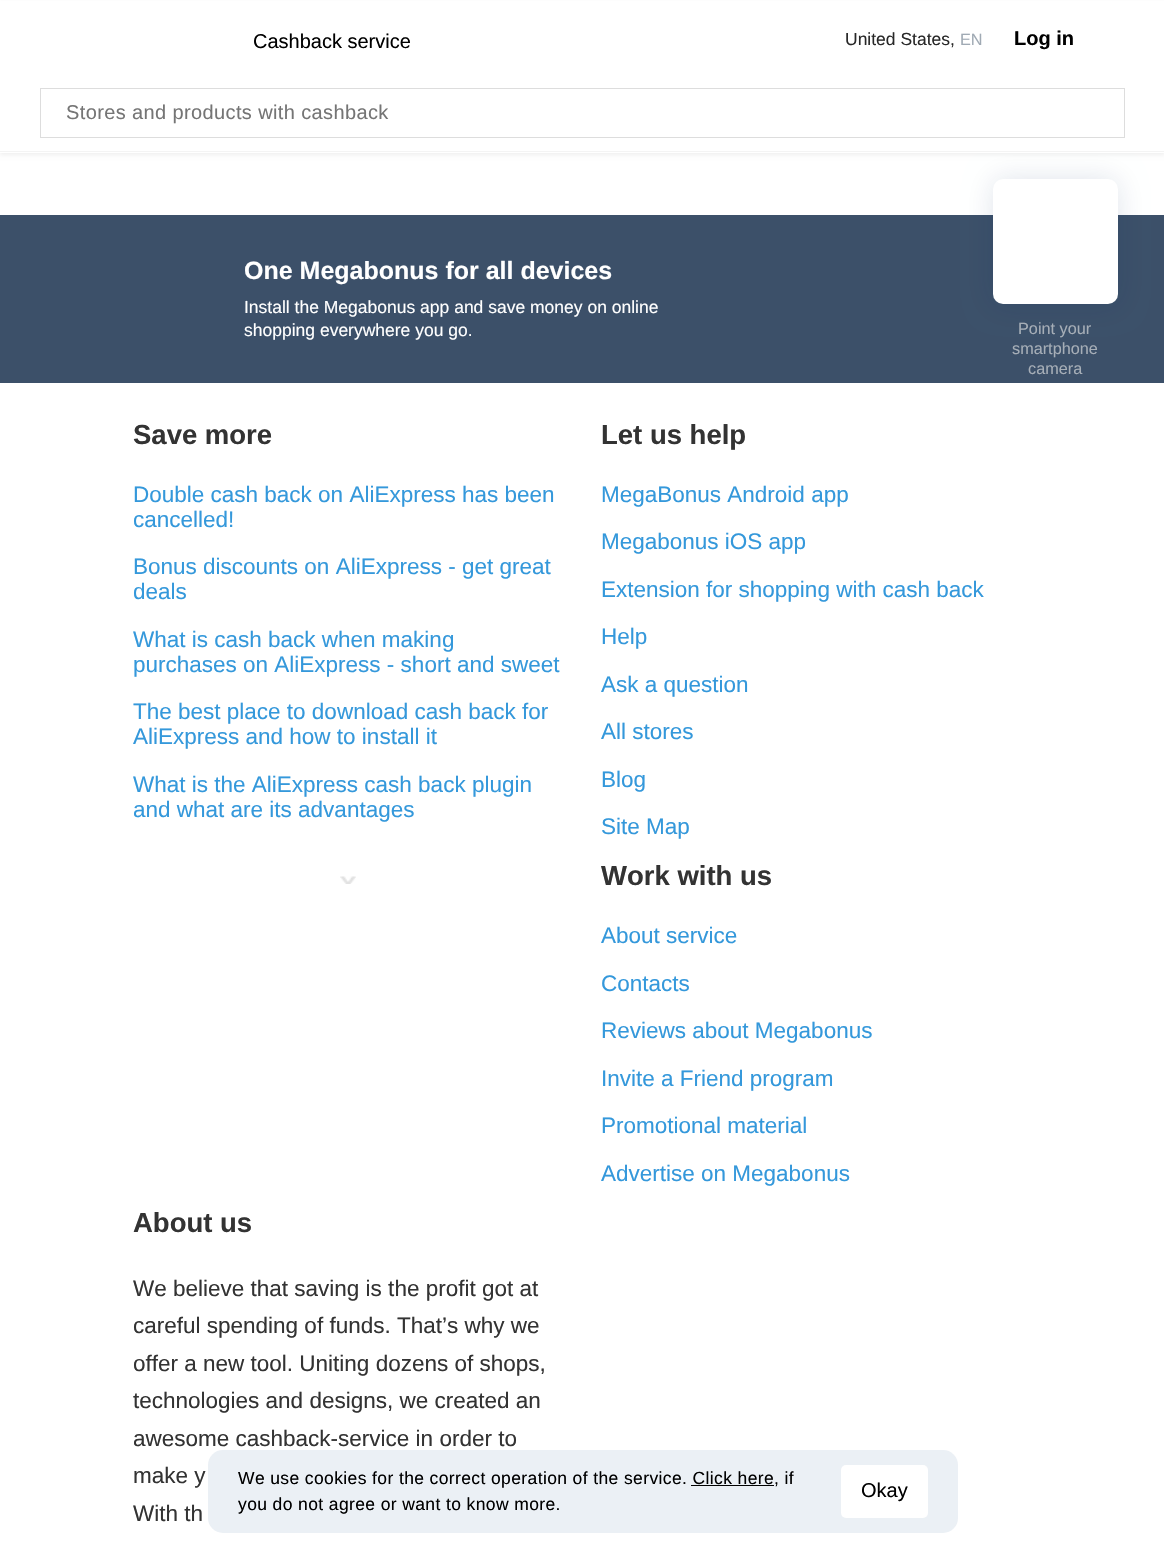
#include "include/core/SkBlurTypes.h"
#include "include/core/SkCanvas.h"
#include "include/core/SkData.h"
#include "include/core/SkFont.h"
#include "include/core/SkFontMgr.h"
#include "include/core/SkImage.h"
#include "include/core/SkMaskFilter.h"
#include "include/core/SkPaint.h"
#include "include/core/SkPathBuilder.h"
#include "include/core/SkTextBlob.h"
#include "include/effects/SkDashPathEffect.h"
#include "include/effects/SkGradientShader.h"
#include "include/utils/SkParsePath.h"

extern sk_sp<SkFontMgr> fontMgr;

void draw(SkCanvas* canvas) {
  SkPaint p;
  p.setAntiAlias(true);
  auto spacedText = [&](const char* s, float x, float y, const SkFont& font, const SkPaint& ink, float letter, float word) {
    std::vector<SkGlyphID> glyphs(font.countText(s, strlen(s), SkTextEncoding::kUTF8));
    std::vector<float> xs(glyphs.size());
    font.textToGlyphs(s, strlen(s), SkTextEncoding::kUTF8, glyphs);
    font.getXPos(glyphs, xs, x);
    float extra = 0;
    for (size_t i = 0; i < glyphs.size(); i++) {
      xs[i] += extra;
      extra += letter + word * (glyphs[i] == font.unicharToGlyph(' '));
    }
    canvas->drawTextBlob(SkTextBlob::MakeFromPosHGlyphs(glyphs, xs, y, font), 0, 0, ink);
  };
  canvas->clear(SK_ColorWHITE);
  p.setColor(SkColorSetARGB(15, 0, 0, 0));
  p.setMaskFilter(SkMaskFilter::MakeBlur(kNormal_SkBlurStyle, 2));
  canvas->drawRect(SkRect::MakeLTRB(0, 3, 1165, 155), p);
  p.setMaskFilter(nullptr);
  p.setColor(SkColorSetRGB(60, 80, 105));
  canvas->drawRect(SkRect::MakeLTRB(0, 215, 1164, 383), p);
  p.setColor(SkColorSetARGB(31, 3, 31, 92));
  p.setMaskFilter(SkMaskFilter::MakeBlur(kNormal_SkBlurStyle, 14));
  canvas->drawRoundRect(SkRect::MakeLTRB(993, 179, 1118, 304), 10, 10, p);
  p.setMaskFilter(nullptr);
  p.setColor(SK_ColorWHITE);
  canvas->drawRect(SkRect::MakeLTRB(0, 1, 1164, 153), p);
  p.setColor(SkColorSetRGB(244, 244, 244));
  canvas->drawRect(SkRect::MakeLTRB(0, 151, 1164, 152), p);
  p.setStyle(SkPaint::kStroke_Style);
  p.setStrokeWidth(1);
  p.setColor(SkColorSetRGB(221, 221, 221));
  canvas->drawRect(SkRect::MakeLTRB(40.5f, 88.5f, 1124.5f, 137.5f), p);
  p.setStyle(SkPaint::kFill_Style);
  p.setColor(SK_ColorWHITE);
  canvas->drawRoundRect(SkRect::MakeLTRB(993, 179, 1118, 304), 10, 10, p);
  canvas->drawImageRect(SkImages::DeferredFromEncodedData(SkData::MakeFromFileName("images/1.png")), SkRect::MakeLTRB(340, 876, 356, 884), SkSamplingOptions());
  p.setColor(SkColorSetRGB(235, 240, 245));
  canvas->drawRoundRect(SkRect::MakeLTRB(208, 1450, 958, 1533), 15, 15, p);
  p.setColor(SK_ColorBLACK);
  canvas->drawRect(SkRect::MakeLTRB(691, 1485, 774, 1486), p);
  p.setColor(SK_ColorWHITE);
  canvas->drawRoundRect(SkRect::MakeLTRB(841, 1465, 928, 1518), 5, 5, p);
  SkFont font1(fontMgr->matchFamilyStyle("Liberation Sans", SkFontStyle::Normal()), 20);
  font1.setSubpixel(true);
  p.setColor(SK_ColorBLACK);
  canvas->drawString("Cashback service", 253, 48, font1, p);
  SkFont font2(fontMgr->matchFamilyStyle("Liberation Sans", SkFontStyle::Normal()), 17.5f);
  font2.setSubpixel(true);
  p.setColor(SkColorSetRGB(40, 40, 40));
  canvas->drawString("United States,", 845, 45, font2, p);
  SkFont font3(fontMgr->matchFamilyStyle("Liberation Sans", SkFontStyle::Normal()), 16.25f);
  font3.setSubpixel(true);
  p.setColor(SkColorSetRGB(160, 170, 180));
  canvas->drawString("EN", 960, 45, font3, p);
  SkFont font4(fontMgr->matchFamilyStyle("Liberation Sans", SkFontStyle::Bold()), 20);
  font4.setSubpixel(true);
  p.setColor(SK_ColorBLACK);
  canvas->drawString("Log in", 1014, 45, font4, p);
  p.setColor(SkColorSetRGB(117, 117, 117));
  spacedText("Stores and products with cashback", 66, 119, font1, p, 0.38f, 0);
  SkFont font5(fontMgr->matchFamilyStyle("Liberation Sans", SkFontStyle::Bold()), 25);
  font5.setSubpixel(true);
  p.setColor(SK_ColorWHITE);
  canvas->drawString("One Megabonus for all devices", 244, 279, font5, p);
  canvas->drawString("Install the Megabonus app and save money on online", 244, 313, font2, p);
  canvas->drawString("shopping everywhere you go.", 244, 336, font2, p);
  p.setColor(SkColorSetRGB(166, 174, 183));
  canvas->drawString("Point your", 1018, 334, font3, p);
  canvas->drawString("smartphone", 1012, 354, font3, p);
  canvas->drawString("camera", 1028, 374, font3, p);
  SkFont font6(fontMgr->matchFamilyStyle("Liberation Sans", SkFontStyle::Bold()), 27.5f);
  font6.setSubpixel(true);
  p.setColor(SkColorSetRGB(51, 51, 51));
  canvas->drawString("Save more", 133, 444, font6, p);
  SkFont font7(fontMgr->matchFamilyStyle("Liberation Sans", SkFontStyle::Normal()), 22.5f);
  font7.setSubpixel(true);
  p.setColor(SkColorSetRGB(52, 152, 219));
  canvas->drawString("Double cash back on AliExpress has been", 133, 502, font7, p);
  canvas->drawString("cancelled!", 133, 527, font7, p);
  canvas->drawString("Bonus discounts on AliExpress - get great", 133, 574, font7, p);
  canvas->drawString("deals", 133, 599, font7, p);
  canvas->drawString("What is cash back when making", 133, 647, font7, p);
  canvas->drawString("purchases on AliExpress - short and sweet", 133, 672, font7, p);
  canvas->drawString("The best place to download cash back for", 133, 719, font7, p);
  canvas->drawString("AliExpress and how to install it", 133, 744, font7, p);
  canvas->drawString("What is the AliExpress cash back plugin", 133, 792, font7, p);
  canvas->drawString("and what are its advantages", 133, 817, font7, p);
  p.setColor(SkColorSetRGB(51, 51, 51));
  canvas->drawString("Let us help", 601, 444, font6, p);
  p.setColor(SkColorSetRGB(52, 152, 219));
  canvas->drawString("MegaBonus Android app", 601, 502, font7, p);
  canvas->drawString("Megabonus iOS app", 601, 549, font7, p);
  canvas->drawString("Extension for shopping with cash back", 601, 597, font7, p);
  canvas->drawString("Help", 601, 644, font7, p);
  canvas->drawString("Ask a question", 601, 692, font7, p);
  canvas->drawString("All stores", 601, 739, font7, p);
  canvas->drawString("Blog", 601, 787, font7, p);
  canvas->drawString("Site Map", 601, 834, font7, p);
  p.setColor(SkColorSetRGB(51, 51, 51));
  canvas->drawString("Work with us", 601, 885, font6, p);
  p.setColor(SkColorSetRGB(52, 152, 219));
  canvas->drawString("About service", 601, 943, font7, p);
  canvas->drawString("Contacts", 601, 991, font7, p);
  canvas->drawString("Reviews about Megabonus", 601, 1038, font7, p);
  canvas->drawString("Invite a Friend program", 601, 1086, font7, p);
  canvas->drawString("Promotional material", 601, 1133, font7, p);
  canvas->drawString("Advertise on Megabonus", 601, 1181, font7, p);
  p.setColor(SkColorSetRGB(51, 51, 51));
  canvas->drawString("About us", 133, 1232, font6, p);
  canvas->drawString("We believe that saving is the profit got at", 133, 1296, font7, p);
  canvas->drawString("careful spending of funds. That’s why we", 133, 1333, font7, p);
  canvas->drawString("offer a new tool. Uniting dozens of shops,", 133, 1371, font7, p);
  canvas->drawString("technologies and designs, we created an", 133, 1408, font7, p);
  canvas->drawString("awesome cashback-service in order to", 133, 1446, font7, p);
  canvas->drawString("make y", 133, 1483, font7, p);
  canvas->drawString("With th", 133, 1521, font7, p);
  p.setColor(SK_ColorBLACK);
  spacedText("We use cookies for the correct operation of the service. Click here, if", 238, 1484, font2, p, 0.38f, 0);
  spacedText("you do not agree or want to know more.", 238, 1510, font2, p, 0.38f, 0);
  canvas->drawString("Okay", 861, 1497, font1, p);
}
